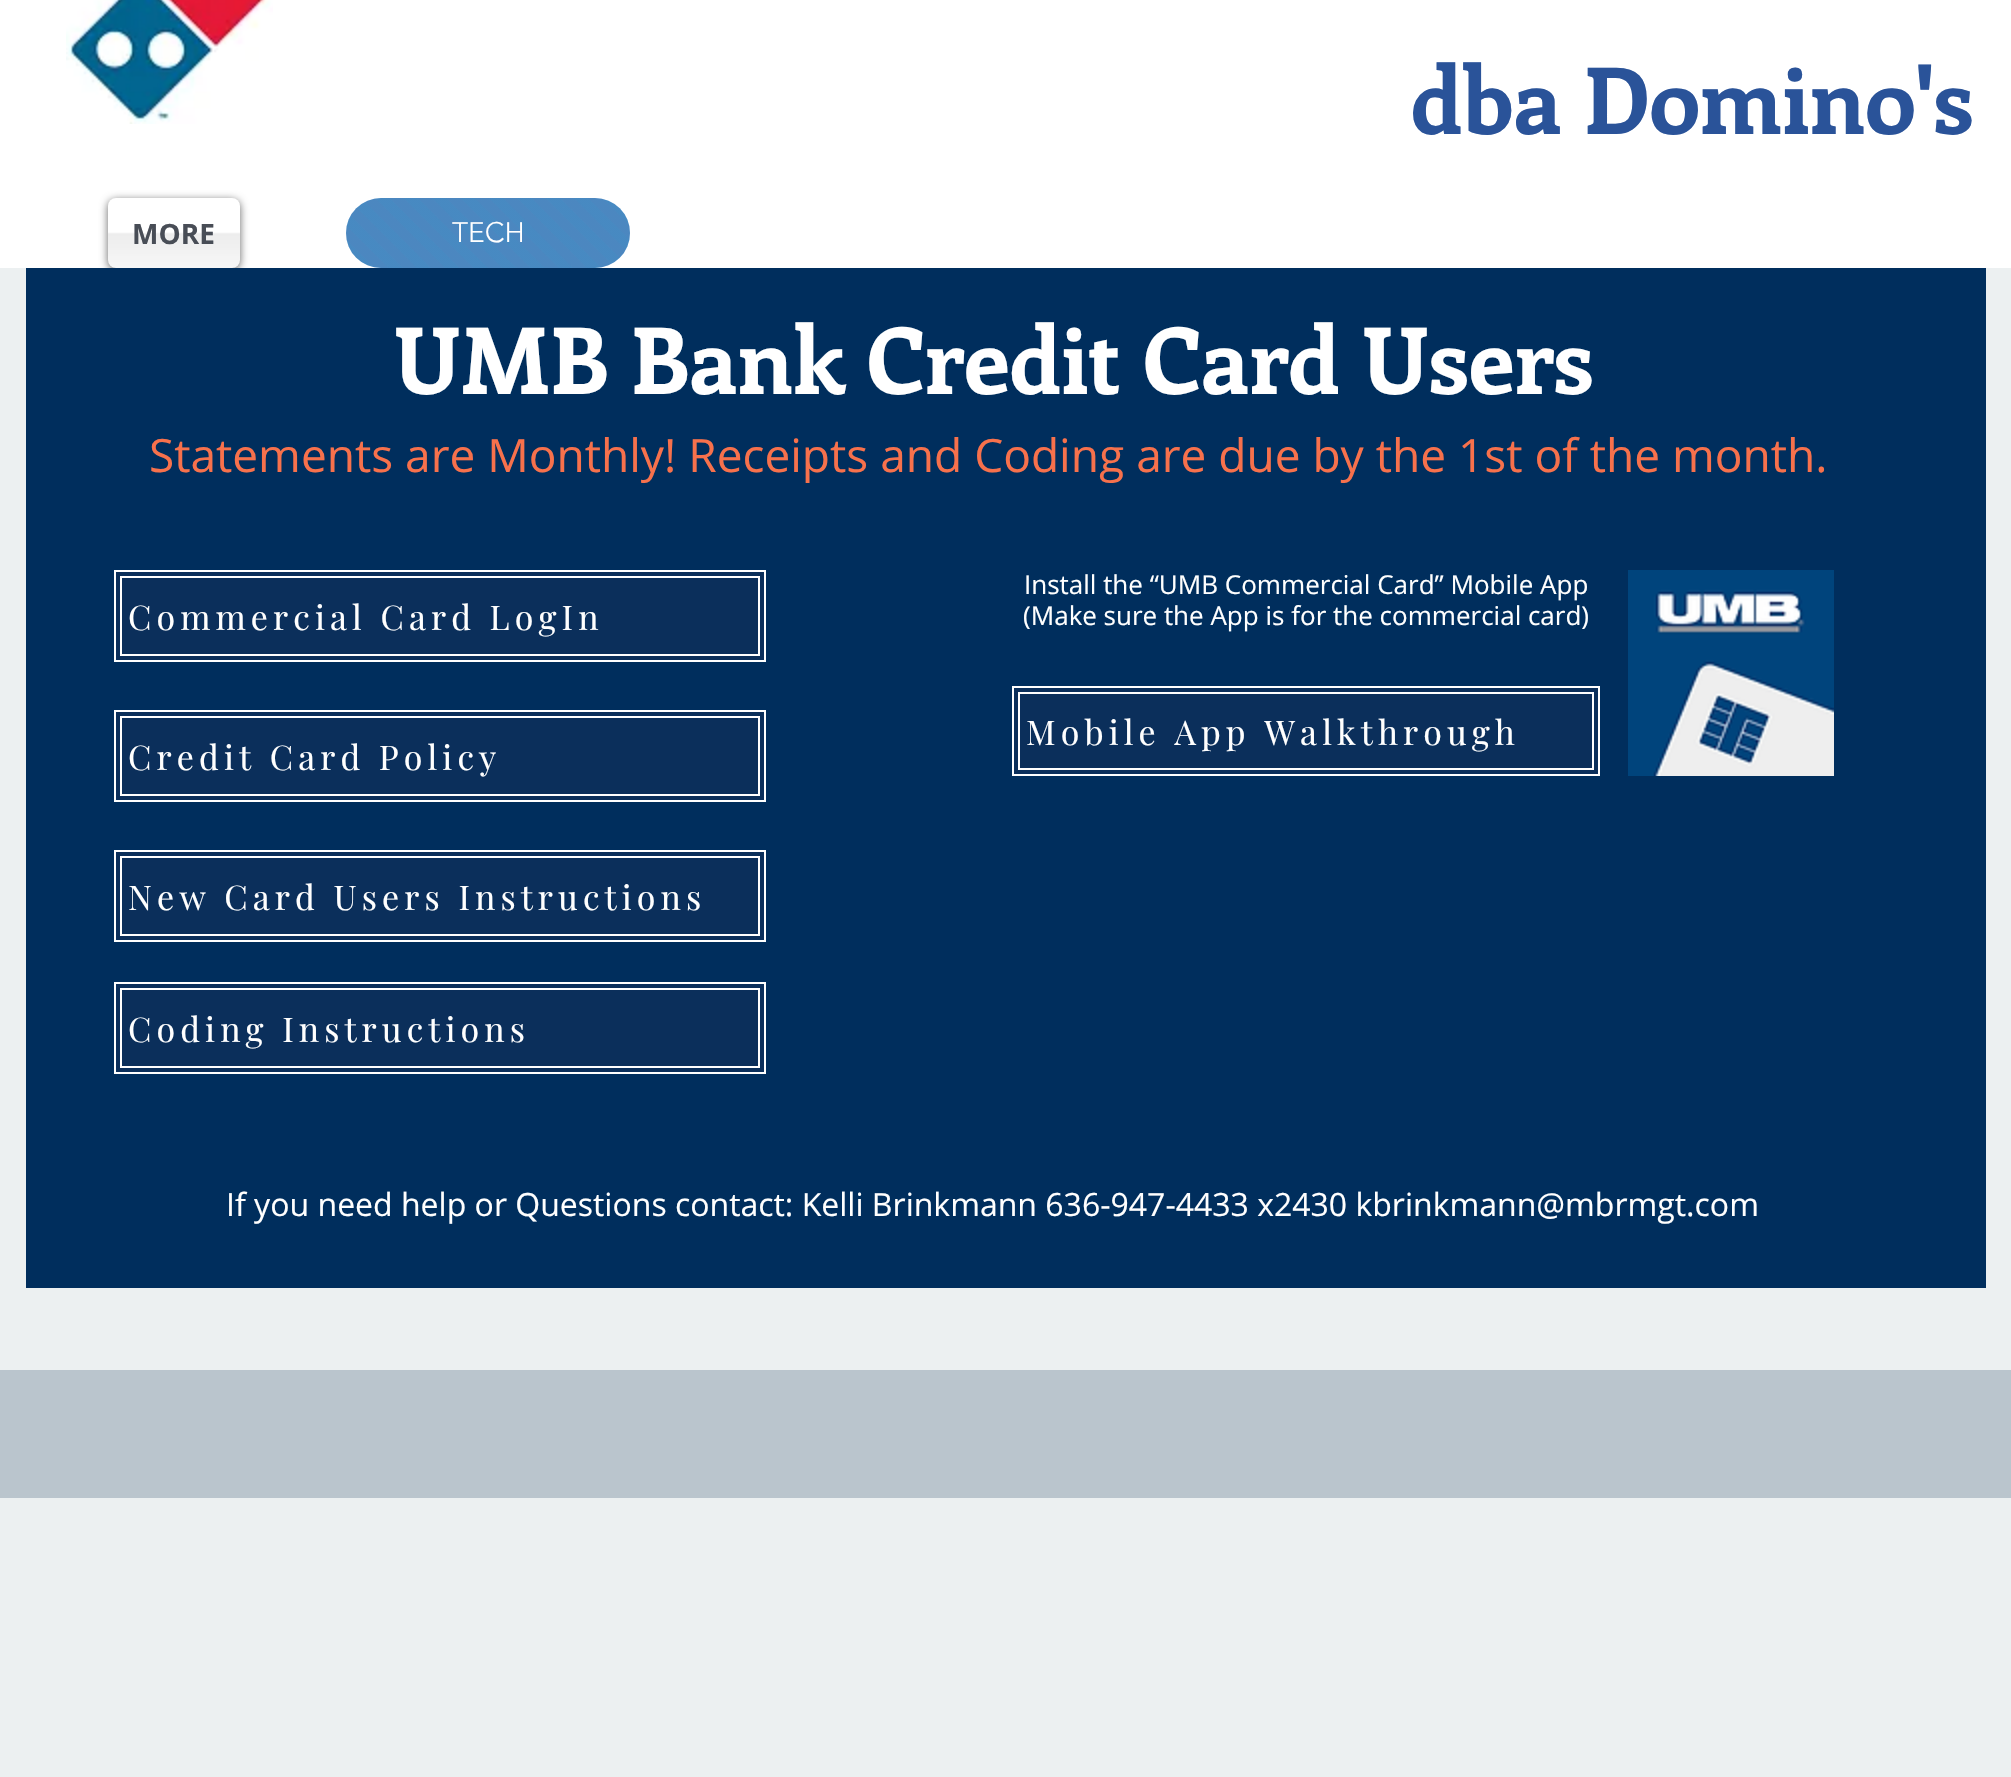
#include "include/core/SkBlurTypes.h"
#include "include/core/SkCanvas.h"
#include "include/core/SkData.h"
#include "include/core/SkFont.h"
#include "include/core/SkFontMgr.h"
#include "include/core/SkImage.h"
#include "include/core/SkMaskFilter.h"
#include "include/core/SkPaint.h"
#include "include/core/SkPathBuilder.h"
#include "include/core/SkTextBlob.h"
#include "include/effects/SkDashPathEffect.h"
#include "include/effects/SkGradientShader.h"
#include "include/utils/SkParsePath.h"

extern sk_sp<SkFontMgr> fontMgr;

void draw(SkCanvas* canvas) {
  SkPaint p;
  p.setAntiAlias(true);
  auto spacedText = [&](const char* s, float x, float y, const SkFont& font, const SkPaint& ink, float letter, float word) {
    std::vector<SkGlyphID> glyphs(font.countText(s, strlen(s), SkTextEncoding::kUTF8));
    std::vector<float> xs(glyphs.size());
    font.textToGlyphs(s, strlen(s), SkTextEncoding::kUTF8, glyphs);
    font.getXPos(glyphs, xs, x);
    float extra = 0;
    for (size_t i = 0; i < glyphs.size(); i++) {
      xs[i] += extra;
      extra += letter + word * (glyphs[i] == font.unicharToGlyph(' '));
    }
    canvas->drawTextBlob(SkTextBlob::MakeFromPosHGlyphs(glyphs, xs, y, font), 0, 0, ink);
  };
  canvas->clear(SkColorSetRGB(236, 240, 241));
  p.setColor(SK_ColorWHITE);
  canvas->drawRect(SkRect::MakeLTRB(0, 0, 2011, 268), p);
  canvas->drawImageRect(SkImages::DeferredFromEncodedData(SkData::MakeFromFileName("images/1.png")), SkRect::MakeLTRB(66, 0, 273, 124), SkSamplingOptions());
  p.setColor(SkColorSetARGB(153, 0, 0, 0));
  p.setMaskFilter(SkMaskFilter::MakeBlur(kNormal_SkBlurStyle, 4));
  canvas->drawRoundRect(SkRect::MakeLTRB(108, 200, 240, 270), 8, 8, p);
  p.setMaskFilter(nullptr);
  p.setColor(SK_ColorWHITE);
  canvas->drawRoundRect(SkRect::MakeLTRB(108, 198, 240, 268), 8, 8, p);
  canvas->drawImageRect(SkImages::DeferredFromEncodedData(SkData::MakeFromFileName("images/2.png")), SkRect::MakeLTRB(108, 232, 240, 268), SkSamplingOptions());
  p.setColor(SkColorSetRGB(208, 231, 249));
  canvas->drawRoundRect(SkRect::MakeLTRB(346, 198, 630, 268), 35, 35, p);
  canvas->drawImageRect(SkImages::DeferredFromEncodedData(SkData::MakeFromFileName("images/3.png")), SkRect::MakeLTRB(346, 198, 630, 268), SkSamplingOptions());
  p.setColor(SkColorSetRGB(0, 46, 93));
  canvas->drawRect(SkRect::MakeLTRB(26, 268, 1986, 1288), p);
  p.setColor(SkColorSetRGB(11, 47, 91));
  canvas->drawRect(SkRect::MakeLTRB(115, 571, 765, 661), p);
  p.setStyle(SkPaint::kStroke_Style);
  p.setStrokeWidth(2);
  p.setColor(SK_ColorWHITE);
  canvas->drawRect(SkRect::MakeLTRB(115, 571, 765, 661), p);
  canvas->drawRect(SkRect::MakeLTRB(121, 577, 759, 655), p);
  canvas->drawImageRect(SkImages::DeferredFromEncodedData(SkData::MakeFromFileName("images/4.png")), SkRect::MakeLTRB(1628, 570, 1834, 776), SkSamplingOptions());
  p.setStyle(SkPaint::kFill_Style);
  p.setColor(SkColorSetRGB(11, 47, 91));
  canvas->drawRect(SkRect::MakeLTRB(1013, 687, 1599, 775), p);
  p.setStyle(SkPaint::kStroke_Style);
  p.setColor(SK_ColorWHITE);
  canvas->drawRect(SkRect::MakeLTRB(1013, 687, 1599, 775), p);
  canvas->drawRect(SkRect::MakeLTRB(1019, 693, 1593, 769), p);
  p.setStyle(SkPaint::kFill_Style);
  p.setColor(SkColorSetRGB(11, 47, 91));
  canvas->drawRect(SkRect::MakeLTRB(115, 711, 765, 801), p);
  p.setStyle(SkPaint::kStroke_Style);
  p.setColor(SK_ColorWHITE);
  canvas->drawRect(SkRect::MakeLTRB(115, 711, 765, 801), p);
  canvas->drawRect(SkRect::MakeLTRB(121, 717, 759, 795), p);
  p.setStyle(SkPaint::kFill_Style);
  p.setColor(SkColorSetRGB(11, 47, 91));
  canvas->drawRect(SkRect::MakeLTRB(115, 851, 765, 941), p);
  p.setStyle(SkPaint::kStroke_Style);
  p.setColor(SK_ColorWHITE);
  canvas->drawRect(SkRect::MakeLTRB(115, 851, 765, 941), p);
  canvas->drawRect(SkRect::MakeLTRB(121, 857, 759, 935), p);
  p.setStyle(SkPaint::kFill_Style);
  p.setColor(SkColorSetRGB(11, 47, 91));
  canvas->drawRect(SkRect::MakeLTRB(115, 983, 765, 1073), p);
  p.setStyle(SkPaint::kStroke_Style);
  p.setColor(SK_ColorWHITE);
  canvas->drawRect(SkRect::MakeLTRB(115, 983, 765, 1073), p);
  canvas->drawRect(SkRect::MakeLTRB(121, 989, 759, 1067), p);
  p.setStyle(SkPaint::kFill_Style);
  p.setColor(SkColorSetRGB(186, 197, 205));
  canvas->drawRect(SkRect::MakeLTRB(0, 1370, 2011, 1498), p);
  SkFont font1(fontMgr->matchFamilyStyle("Enriqueta", SkFontStyle::Bold()), 92);
  font1.setSubpixel(true);
  p.setColor(SkColorSetRGB(42, 83, 153));
  canvas->drawString("dba Domino's", 1411, 134, font1, p);
  SkFont font2(fontMgr->matchFamilyStyle("Open Sans", SkFontStyle::Bold()), 28);
  font2.setSubpixel(true);
  p.setColor(SkColorSetRGB(72, 77, 86));
  canvas->drawString("MORE", 132, 244, font2, p);
  SkFont font3(fontMgr->matchFamilyStyle("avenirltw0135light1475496", SkFontStyle(300, SkFontStyle::kNormal_Width, SkFontStyle::kUpright_Slant)), 28);
  font3.setSubpixel(true);
  p.setColor(SK_ColorWHITE);
  canvas->drawString("TECH", 452, 242, font3, p);
  canvas->drawString("UMB Bank Credit Card Users", 394, 394, font1, p);
  SkFont font4(fontMgr->matchFamilyStyle("Open Sans", SkFontStyle::Normal()), 46);
  font4.setSubpixel(true);
  p.setColor(SkColorSetRGB(247, 113, 76));
  canvas->drawString("Statements are Monthly! Receipts and Coding are due by the 1st of the month.", 149, 472, font4, p);
  SkFont font5(fontMgr->matchFamilyStyle("Playfair Display", SkFontStyle::Normal()), 34);
  font5.setSubpixel(true);
  p.setColor(SK_ColorWHITE);
  spacedText("Commercial Card LogIn", 128, 630, font5, p, 5.1f, 0);
  SkFont font6(fontMgr->matchFamilyStyle("Open Sans", SkFontStyle::Normal()), 26);
  font6.setSubpixel(true);
  canvas->drawString("Install the “UMB Commercial Card” Mobile App", 1024, 594, font6, p);
  canvas->drawString("(Make sure the App is for the commercial card)", 1023, 625, font6, p);
  spacedText("Mobile App Walkthrough", 1026, 745, font5, p, 5.1f, 0);
  spacedText("Credit Card Policy", 128, 770, font5, p, 5.1f, 0);
  spacedText("New Card Users Instructions", 128, 910, font5, p, 5.1f, 0);
  spacedText("Coding Instructions", 128, 1042, font5, p, 5.1f, 0);
  SkFont font7(fontMgr->matchFamilyStyle("Open Sans", SkFontStyle::Normal()), 32);
  font7.setSubpixel(true);
  canvas->drawString("If you need help or Questions contact: Kelli Brinkmann 636-947-4433 x2430 kbrinkmann@mbrmgt.com", 226, 1216, font7, p);
}
